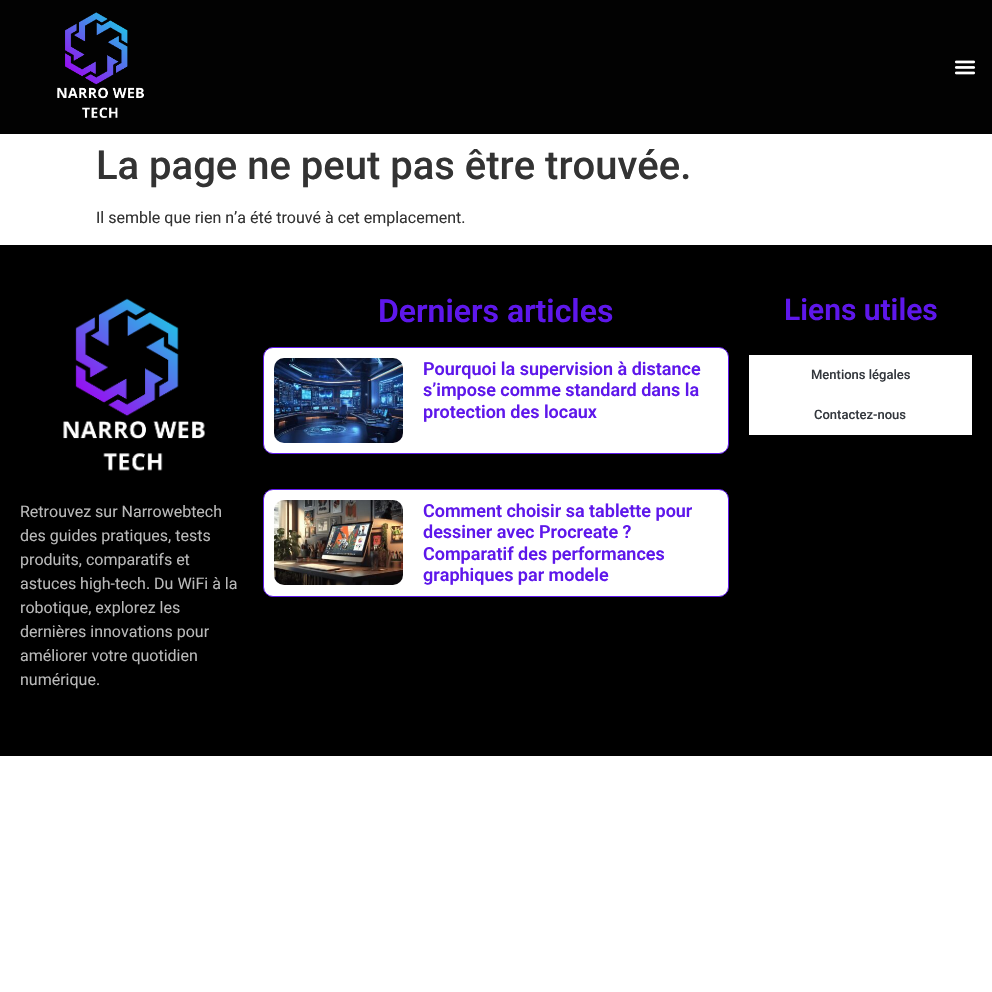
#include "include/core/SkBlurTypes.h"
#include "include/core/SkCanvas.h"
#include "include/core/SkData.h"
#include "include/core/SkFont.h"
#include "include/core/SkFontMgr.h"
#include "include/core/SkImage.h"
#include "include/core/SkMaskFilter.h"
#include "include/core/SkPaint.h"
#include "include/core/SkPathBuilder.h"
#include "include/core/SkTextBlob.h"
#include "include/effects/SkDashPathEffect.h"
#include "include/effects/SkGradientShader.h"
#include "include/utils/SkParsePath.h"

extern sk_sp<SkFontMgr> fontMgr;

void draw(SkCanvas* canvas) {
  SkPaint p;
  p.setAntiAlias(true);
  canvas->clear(SK_ColorWHITE);
  p.setColor(SkColorSetRGB(2, 2, 2));
  canvas->drawRect(SkRect::MakeLTRB(0, 0, 992, 134), p);
  canvas->drawImageRect(SkImages::DeferredFromEncodedData(SkData::MakeFromFileName("images/1.png")), SkRect::MakeLTRB(57, 12, 144, 118), SkSamplingOptions());
  canvas->drawImageRect(SkImages::DeferredFromEncodedData(SkData::MakeFromFileName("images/2.png")), SkRect::MakeLTRB(954, 60, 976, 75), SkSamplingOptions());
  p.setColor(SK_ColorBLACK);
  canvas->drawRect(SkRect::MakeLTRB(0, 245, 992, 756), p);
  canvas->drawImageRect(SkImages::DeferredFromEncodedData(SkData::MakeFromFileName("images/3.png")), SkRect::MakeLTRB(63, 298, 206, 471), SkSamplingOptions());
  p.setColor(SK_ColorWHITE);
  canvas->drawRoundRect(SkRect::MakeLTRB(263.5f, 347.5f, 728.5f, 453.5f), 9.5f, 9.5f, p);
  p.setStyle(SkPaint::kStroke_Style);
  p.setStrokeWidth(1);
  p.setColor(SkColorSetRGB(94, 23, 235));
  canvas->drawRoundRect(SkRect::MakeLTRB(263.5f, 347.5f, 728.5f, 453.5f), 9.5f, 9.5f, p);
  canvas->drawImageRect(SkImages::DeferredFromEncodedData(SkData::MakeFromFileName("images/4.png")), SkRect::MakeLTRB(274, 358, 403, 443), SkSamplingOptions());
  p.setStyle(SkPaint::kFill_Style);
  p.setColor(SK_ColorWHITE);
  canvas->drawRoundRect(SkRect::MakeLTRB(263.5f, 489.5f, 728.5f, 596.5f), 9.5f, 9.5f, p);
  p.setStyle(SkPaint::kStroke_Style);
  p.setColor(SkColorSetRGB(94, 23, 235));
  canvas->drawRoundRect(SkRect::MakeLTRB(263.5f, 489.5f, 728.5f, 596.5f), 9.5f, 9.5f, p);
  canvas->drawImageRect(SkImages::DeferredFromEncodedData(SkData::MakeFromFileName("images/5.png")), SkRect::MakeLTRB(274, 500, 403, 585), SkSamplingOptions());
  p.setStyle(SkPaint::kFill_Style);
  p.setColor(SK_ColorWHITE);
  canvas->drawRect(SkRect::MakeLTRB(749, 355, 972, 435), p);
  SkFont font1(fontMgr->matchFamilyStyle("Roboto", SkFontStyle(500, SkFontStyle::kNormal_Width, SkFontStyle::kUpright_Slant)), 40);
  font1.setSubpixel(true);
  p.setColor(SkColorSetRGB(51, 51, 51));
  canvas->drawString("La page ne peut pas être trouvée.", 96, 179, font1, p);
  SkFont font2(fontMgr->matchFamilyStyle("Roboto", SkFontStyle::Normal()), 16);
  font2.setSubpixel(true);
  canvas->drawString("Il semble que rien n’a été trouvé à cet emplacement.", 96, 223, font2, p);
  p.setColor(SkColorSetRGB(185, 185, 185));
  canvas->drawString("Retrouvez sur Narrowebtech", 20, 517, font2, p);
  canvas->drawString("des guides pratiques, tests", 20, 541, font2, p);
  canvas->drawString("produits, comparatifs et", 20, 565, font2, p);
  canvas->drawString("astuces high-tech. Du WiFi à la", 20, 589, font2, p);
  canvas->drawString("robotique, explorez les", 20, 613, font2, p);
  canvas->drawString("dernières innovations pour", 20, 637, font2, p);
  canvas->drawString("améliorer votre quotidien", 20, 661, font2, p);
  canvas->drawString("numérique.", 20, 685, font2, p);
  SkFont font3(fontMgr->matchFamilyStyle("Roboto", SkFontStyle(600, SkFontStyle::kNormal_Width, SkFontStyle::kUpright_Slant)), 32);
  font3.setSubpixel(true);
  p.setColor(SkColorSetRGB(94, 23, 235));
  canvas->drawString("Derniers articles", 378, 322, font3, p);
  SkFont font4(fontMgr->matchFamilyStyle("Roboto", SkFontStyle(600, SkFontStyle::kNormal_Width, SkFontStyle::kUpright_Slant)), 18);
  font4.setSubpixel(true);
  canvas->drawString("Pourquoi la supervision à distance", 423, 375, font4, p);
  canvas->drawString("s’impose comme standard dans la", 423, 396, font4, p);
  canvas->drawString("protection des locaux", 423, 418, font4, p);
  canvas->drawString("Comment choisir sa tablette pour", 423, 517, font4, p);
  canvas->drawString("dessiner avec Procreate ?", 423, 538, font4, p);
  canvas->drawString("Comparatif des performances", 423, 560, font4, p);
  canvas->drawString("graphiques par modele", 423, 581, font4, p);
  SkFont font5(fontMgr->matchFamilyStyle("Roboto", SkFontStyle(600, SkFontStyle::kNormal_Width, SkFontStyle::kUpright_Slant)), 30);
  font5.setSubpixel(true);
  canvas->drawString("Liens utiles", 784, 320, font5, p);
  SkFont font6(fontMgr->matchFamilyStyle("Roboto", SkFontStyle(500, SkFontStyle::kNormal_Width, SkFontStyle::kUpright_Slant)), 13);
  font6.setSubpixel(true);
  p.setColor(SkColorSetRGB(51, 55, 61));
  canvas->drawString("Mentions légales", 811, 379, font6, p);
  canvas->drawString("Contactez-nous", 814, 419, font6, p);
}
